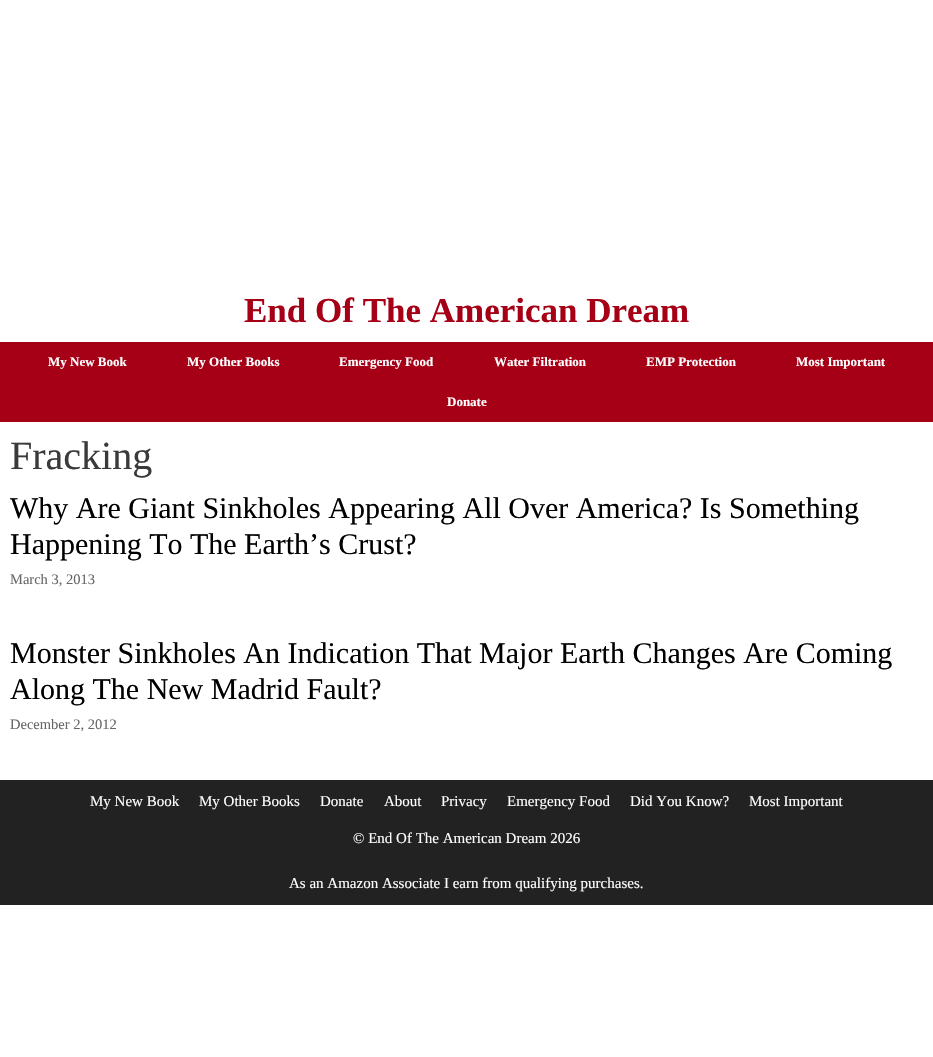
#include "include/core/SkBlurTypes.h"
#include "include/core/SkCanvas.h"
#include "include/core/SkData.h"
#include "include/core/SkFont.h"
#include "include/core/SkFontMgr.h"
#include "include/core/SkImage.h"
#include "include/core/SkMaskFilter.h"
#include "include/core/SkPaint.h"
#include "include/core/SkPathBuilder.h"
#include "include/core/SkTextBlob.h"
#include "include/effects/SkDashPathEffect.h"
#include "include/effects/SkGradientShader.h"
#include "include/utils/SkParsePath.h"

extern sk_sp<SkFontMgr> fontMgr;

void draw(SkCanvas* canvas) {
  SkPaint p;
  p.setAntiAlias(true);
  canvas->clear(SK_ColorWHITE);
  p.setColor(SkColorSetRGB(165, 0, 22));
  canvas->drawRect(SkRect::MakeLTRB(0, 342, 933, 422), p);
  p.setColor(SkColorSetRGB(34, 34, 34));
  canvas->drawRect(SkRect::MakeLTRB(0, 780, 933, 905), p);
  SkFont font1(fontMgr->matchFamilyStyle("Liberation Serif", SkFontStyle::Bold()), 35);
  font1.setSubpixel(true);
  p.setColor(SkColorSetRGB(165, 0, 22));
  canvas->drawString("End Of The American Dream", 244, 322, font1, p);
  SkFont font2(fontMgr->matchFamilyStyle("Liberation Serif", SkFontStyle::Bold()), 13);
  font2.setSubpixel(true);
  p.setColor(SK_ColorWHITE);
  canvas->drawString("My New Book", 48, 366, font2, p);
  canvas->drawString("My Other Books", 187, 366, font2, p);
  canvas->drawString("Emergency Food", 339, 366, font2, p);
  canvas->drawString("Water Filtration", 494, 366, font2, p);
  canvas->drawString("EMP Protection", 646, 366, font2, p);
  canvas->drawString("Most Important", 796, 366, font2, p);
  canvas->drawString("Donate", 447, 406, font2, p);
  SkFont font3(fontMgr->matchFamilyStyle("Liberation Serif", SkFontStyle::Normal()), 40);
  font3.setSubpixel(true);
  p.setColor(SkColorSetRGB(58, 58, 58));
  canvas->drawString("Fracking", 10, 469, font3, p);
  SkFont font4(fontMgr->matchFamilyStyle("Liberation Serif", SkFontStyle::Normal()), 30);
  font4.setSubpixel(true);
  p.setColor(SK_ColorBLACK);
  canvas->drawString("Why Are Giant Sinkholes Appearing All Over America? Is Something", 10, 518, font4, p);
  canvas->drawString("Happening To The Earth’s Crust?", 10, 554, font4, p);
  SkFont font5(fontMgr->matchFamilyStyle("Liberation Serif", SkFontStyle::Normal()), 14.5f);
  font5.setSubpixel(true);
  p.setColor(SkColorSetRGB(102, 102, 102));
  canvas->drawString("March 3, 2013", 10, 584, font5, p);
  p.setColor(SK_ColorBLACK);
  canvas->drawString("Monster Sinkholes An Indication That Major Earth Changes Are Coming", 10, 663, font4, p);
  canvas->drawString("Along The New Madrid Fault?", 10, 699, font4, p);
  p.setColor(SkColorSetRGB(102, 102, 102));
  canvas->drawString("December 2, 2012", 10, 729, font5, p);
  SkFont font6(fontMgr->matchFamilyStyle("Liberation Serif", SkFontStyle::Normal()), 15);
  font6.setSubpixel(true);
  p.setColor(SK_ColorWHITE);
  canvas->drawString("My New Book", 90, 806, font6, p);
  canvas->drawString("My Other Books", 199, 806, font6, p);
  canvas->drawString("Donate", 320, 806, font6, p);
  canvas->drawString("About", 384, 806, font6, p);
  canvas->drawString("Privacy", 441, 806, font6, p);
  canvas->drawString("Emergency Food", 507, 806, font6, p);
  canvas->drawString("Did You Know?", 630, 806, font6, p);
  canvas->drawString("Most Important", 749, 806, font6, p);
  canvas->drawString("© End Of The American Dream 2026", 353, 843, font6, p);
  canvas->drawString("As an Amazon Associate I earn from qualifying purchases.", 289, 888, font6, p);
}
